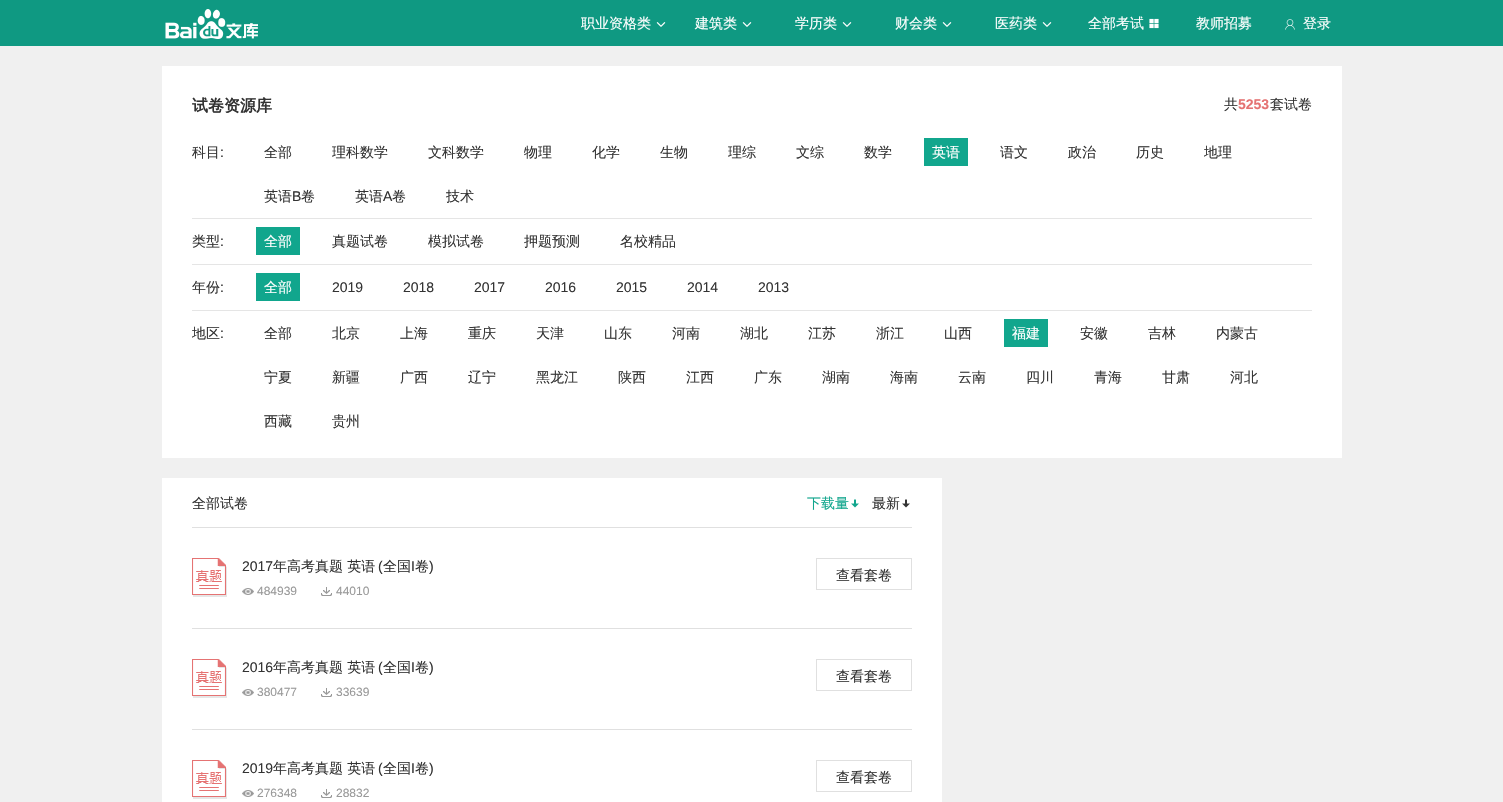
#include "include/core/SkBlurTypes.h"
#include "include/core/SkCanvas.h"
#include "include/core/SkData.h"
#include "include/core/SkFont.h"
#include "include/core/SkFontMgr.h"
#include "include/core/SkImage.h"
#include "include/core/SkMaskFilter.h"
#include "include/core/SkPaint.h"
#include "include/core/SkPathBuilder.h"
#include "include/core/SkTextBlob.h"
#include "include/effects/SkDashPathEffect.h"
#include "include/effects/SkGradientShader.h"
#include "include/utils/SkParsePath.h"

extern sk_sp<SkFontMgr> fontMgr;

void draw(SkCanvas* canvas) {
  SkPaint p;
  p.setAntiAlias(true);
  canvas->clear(SkColorSetRGB(240, 240, 240));
  p.setColor(SkColorSetRGB(15, 153, 130));
  canvas->drawRect(SkRect::MakeLTRB(0, 0, 1503, 46), p);
  canvas->drawImageRect(SkImages::DeferredFromEncodedData(SkData::MakeFromFileName("images/1.png")), SkRect::MakeLTRB(165, 9, 258, 39), SkSamplingOptions());
  canvas->drawImageRect(SkImages::DeferredFromEncodedData(SkData::MakeFromFileName("images/2.png")), SkRect::MakeLTRB(656, 22, 666, 27), SkSamplingOptions());
  canvas->drawImageRect(SkImages::DeferredFromEncodedData(SkData::MakeFromFileName("images/2.png")), SkRect::MakeLTRB(742, 22, 752, 27), SkSamplingOptions());
  canvas->drawImageRect(SkImages::DeferredFromEncodedData(SkData::MakeFromFileName("images/2.png")), SkRect::MakeLTRB(842, 22, 852, 27), SkSamplingOptions());
  canvas->drawImageRect(SkImages::DeferredFromEncodedData(SkData::MakeFromFileName("images/2.png")), SkRect::MakeLTRB(942, 22, 952, 27), SkSamplingOptions());
  canvas->drawImageRect(SkImages::DeferredFromEncodedData(SkData::MakeFromFileName("images/2.png")), SkRect::MakeLTRB(1042, 22, 1052, 27), SkSamplingOptions());
  canvas->drawImageRect(SkImages::DeferredFromEncodedData(SkData::MakeFromFileName("images/3.png")), SkRect::MakeLTRB(1149, 18, 1159, 29), SkSamplingOptions());
  canvas->drawImageRect(SkImages::DeferredFromEncodedData(SkData::MakeFromFileName("images/4.png")), SkRect::MakeLTRB(1285, 19, 1295, 30), SkSamplingOptions());
  p.setColor(SK_ColorWHITE);
  canvas->drawRect(SkRect::MakeLTRB(162, 66, 1342, 458), p);
  p.setColor(SkColorSetRGB(229, 229, 229));
  canvas->drawRect(SkRect::MakeLTRB(192, 218, 1312, 219), p);
  p.setColor(SkColorSetRGB(17, 166, 141));
  canvas->drawRect(SkRect::MakeLTRB(924, 138, 968, 166), p);
  p.setColor(SkColorSetRGB(229, 229, 229));
  canvas->drawRect(SkRect::MakeLTRB(192, 264, 1312, 265), p);
  p.setColor(SkColorSetRGB(17, 166, 141));
  canvas->drawRect(SkRect::MakeLTRB(256, 227, 300, 255), p);
  p.setColor(SkColorSetRGB(229, 229, 229));
  canvas->drawRect(SkRect::MakeLTRB(192, 310, 1312, 311), p);
  p.setColor(SkColorSetRGB(17, 166, 141));
  canvas->drawRect(SkRect::MakeLTRB(256, 273, 300, 301), p);
  canvas->drawRect(SkRect::MakeLTRB(1004, 319, 1048, 347), p);
  p.setColor(SK_ColorWHITE);
  canvas->drawRect(SkRect::MakeLTRB(162, 478, 942, 802), p);
  p.setColor(SkColorSetRGB(224, 224, 224));
  canvas->drawRect(SkRect::MakeLTRB(192, 527, 912, 528), p);
  canvas->drawImageRect(SkImages::DeferredFromEncodedData(SkData::MakeFromFileName("images/5.png")), SkRect::MakeLTRB(851, 499, 859, 508), SkSamplingOptions());
  canvas->drawImageRect(SkImages::DeferredFromEncodedData(SkData::MakeFromFileName("images/6.png")), SkRect::MakeLTRB(902, 499, 910, 508), SkSamplingOptions());
  canvas->drawImageRect(SkImages::DeferredFromEncodedData(SkData::MakeFromFileName("images/7.png")), SkRect::MakeLTRB(192, 558, 227, 597), SkSamplingOptions());
  canvas->drawImageRect(SkImages::DeferredFromEncodedData(SkData::MakeFromFileName("images/8.png")), SkRect::MakeLTRB(242, 588, 254, 595), SkSamplingOptions());
  canvas->drawImageRect(SkImages::DeferredFromEncodedData(SkData::MakeFromFileName("images/9.png")), SkRect::MakeLTRB(321, 587, 332, 596), SkSamplingOptions());
  p.setStyle(SkPaint::kStroke_Style);
  p.setStrokeWidth(1);
  canvas->drawRect(SkRect::MakeLTRB(816.5f, 558.5f, 911.5f, 589.5f), p);
  p.setStyle(SkPaint::kFill_Style);
  canvas->drawRect(SkRect::MakeLTRB(192, 628, 912, 629), p);
  canvas->drawImageRect(SkImages::DeferredFromEncodedData(SkData::MakeFromFileName("images/7.png")), SkRect::MakeLTRB(192, 659, 227, 698), SkSamplingOptions());
  canvas->drawImageRect(SkImages::DeferredFromEncodedData(SkData::MakeFromFileName("images/8.png")), SkRect::MakeLTRB(242, 689, 254, 696), SkSamplingOptions());
  canvas->drawImageRect(SkImages::DeferredFromEncodedData(SkData::MakeFromFileName("images/9.png")), SkRect::MakeLTRB(321, 688, 332, 697), SkSamplingOptions());
  p.setStyle(SkPaint::kStroke_Style);
  canvas->drawRect(SkRect::MakeLTRB(816.5f, 659.5f, 911.5f, 690.5f), p);
  p.setStyle(SkPaint::kFill_Style);
  canvas->drawRect(SkRect::MakeLTRB(192, 729, 912, 730), p);
  canvas->drawImageRect(SkImages::DeferredFromEncodedData(SkData::MakeFromFileName("images/7.png")), SkRect::MakeLTRB(192, 760, 227, 799), SkSamplingOptions());
  canvas->drawImageRect(SkImages::DeferredFromEncodedData(SkData::MakeFromFileName("images/8.png")), SkRect::MakeLTRB(242, 790, 254, 797), SkSamplingOptions());
  canvas->drawImageRect(SkImages::DeferredFromEncodedData(SkData::MakeFromFileName("images/9.png")), SkRect::MakeLTRB(321, 789, 332, 798), SkSamplingOptions());
  p.setStyle(SkPaint::kStroke_Style);
  canvas->drawRect(SkRect::MakeLTRB(816.5f, 760.5f, 911.5f, 791.5f), p);
  SkFont font1(fontMgr->matchFamilyStyle("WenQuanYi Zen Hei", SkFontStyle(500, SkFontStyle::kNormal_Width, SkFontStyle::kUpright_Slant)), 14);
  font1.setSubpixel(true);
  p.setStyle(SkPaint::kFill_Style);
  p.setColor(SK_ColorWHITE);
  canvas->drawString("职业资格类", 581, 28, font1, p);
  canvas->drawString("建筑类", 695, 28, font1, p);
  canvas->drawString("学历类", 795, 28, font1, p);
  canvas->drawString("财会类", 895, 28, font1, p);
  canvas->drawString("医药类", 995, 28, font1, p);
  canvas->drawString("全部考试", 1088, 28, font1, p);
  canvas->drawString("教师招募", 1196, 28, font1, p);
  canvas->drawString("登录", 1303, 28, font1, p);
  SkFont font2(fontMgr->matchFamilyStyle("WenQuanYi Zen Hei", SkFontStyle::Bold()), 16);
  font2.setSubpixel(true);
  p.setColor(SkColorSetRGB(51, 51, 51));
  canvas->drawString("试卷资源库", 192, 111, font2, p);
  canvas->drawString("共", 1224, 109, font1, p);
  SkFont font3(fontMgr->matchFamilyStyle("Liberation Sans", SkFontStyle::Bold()), 14);
  font3.setSubpixel(true);
  p.setColor(SkColorSetRGB(229, 115, 115));
  canvas->drawString("5253", 1238, 109, font3, p);
  p.setColor(SkColorSetRGB(51, 51, 51));
  canvas->drawString("套试卷", 1270, 109, font1, p);
  canvas->drawString("科目", 192, 157, font1, p);
  SkFont font4(fontMgr->matchFamilyStyle("Liberation Sans", SkFontStyle::Normal()), 14);
  font4.setSubpixel(true);
  canvas->drawString(":", 220, 157, font4, p);
  canvas->drawString("全部", 264, 157, font1, p);
  canvas->drawString("理科数学", 332, 157, font1, p);
  canvas->drawString("文科数学", 428, 157, font1, p);
  canvas->drawString("物理", 524, 157, font1, p);
  canvas->drawString("化学", 592, 157, font1, p);
  canvas->drawString("生物", 660, 157, font1, p);
  canvas->drawString("理综", 728, 157, font1, p);
  canvas->drawString("文综", 796, 157, font1, p);
  canvas->drawString("数学", 864, 157, font1, p);
  p.setColor(SK_ColorWHITE);
  canvas->drawString("英语", 932, 157, font1, p);
  p.setColor(SkColorSetRGB(51, 51, 51));
  canvas->drawString("语文", 1000, 157, font1, p);
  canvas->drawString("政治", 1068, 157, font1, p);
  canvas->drawString("历史", 1136, 157, font1, p);
  canvas->drawString("地理", 1204, 157, font1, p);
  canvas->drawString("英语", 264, 201, font1, p);
  canvas->drawString("B", 292, 201, font4, p);
  canvas->drawString("卷", 301, 201, font1, p);
  canvas->drawString("英语", 355, 201, font1, p);
  canvas->drawString("A", 383, 201, font4, p);
  canvas->drawString("卷", 392, 201, font1, p);
  canvas->drawString("技术", 446, 201, font1, p);
  canvas->drawString("类型", 192, 246, font1, p);
  canvas->drawString(":", 220, 246, font4, p);
  p.setColor(SK_ColorWHITE);
  canvas->drawString("全部", 264, 246, font1, p);
  p.setColor(SkColorSetRGB(51, 51, 51));
  canvas->drawString("真题试卷", 332, 246, font1, p);
  canvas->drawString("模拟试卷", 428, 246, font1, p);
  canvas->drawString("押题预测", 524, 246, font1, p);
  canvas->drawString("名校精品", 620, 246, font1, p);
  canvas->drawString("年份", 192, 292, font1, p);
  canvas->drawString(":", 220, 292, font4, p);
  p.setColor(SK_ColorWHITE);
  canvas->drawString("全部", 264, 292, font1, p);
  p.setColor(SkColorSetRGB(51, 51, 51));
  canvas->drawString("2019", 332, 292, font4, p);
  canvas->drawString("2018", 403, 292, font4, p);
  canvas->drawString("2017", 474, 292, font4, p);
  canvas->drawString("2016", 545, 292, font4, p);
  canvas->drawString("2015", 616, 292, font4, p);
  canvas->drawString("2014", 687, 292, font4, p);
  canvas->drawString("2013", 758, 292, font4, p);
  canvas->drawString("地区", 192, 338, font1, p);
  canvas->drawString(":", 220, 338, font4, p);
  canvas->drawString("全部", 264, 338, font1, p);
  canvas->drawString("北京", 332, 338, font1, p);
  canvas->drawString("上海", 400, 338, font1, p);
  canvas->drawString("重庆", 468, 338, font1, p);
  canvas->drawString("天津", 536, 338, font1, p);
  canvas->drawString("山东", 604, 338, font1, p);
  canvas->drawString("河南", 672, 338, font1, p);
  canvas->drawString("湖北", 740, 338, font1, p);
  canvas->drawString("江苏", 808, 338, font1, p);
  canvas->drawString("浙江", 876, 338, font1, p);
  canvas->drawString("山西", 944, 338, font1, p);
  p.setColor(SK_ColorWHITE);
  canvas->drawString("福建", 1012, 338, font1, p);
  p.setColor(SkColorSetRGB(51, 51, 51));
  canvas->drawString("安徽", 1080, 338, font1, p);
  canvas->drawString("吉林", 1148, 338, font1, p);
  canvas->drawString("内蒙古", 1216, 338, font1, p);
  canvas->drawString("宁夏", 264, 382, font1, p);
  canvas->drawString("新疆", 332, 382, font1, p);
  canvas->drawString("广西", 400, 382, font1, p);
  canvas->drawString("辽宁", 468, 382, font1, p);
  canvas->drawString("黑龙江", 536, 382, font1, p);
  canvas->drawString("陕西", 618, 382, font1, p);
  canvas->drawString("江西", 686, 382, font1, p);
  canvas->drawString("广东", 754, 382, font1, p);
  canvas->drawString("湖南", 822, 382, font1, p);
  canvas->drawString("海南", 890, 382, font1, p);
  canvas->drawString("云南", 958, 382, font1, p);
  canvas->drawString("四川", 1026, 382, font1, p);
  canvas->drawString("青海", 1094, 382, font1, p);
  canvas->drawString("甘肃", 1162, 382, font1, p);
  canvas->drawString("河北", 1230, 382, font1, p);
  canvas->drawString("西藏", 264, 426, font1, p);
  canvas->drawString("贵州", 332, 426, font1, p);
  canvas->drawString("全部试卷", 192, 508, font1, p);
  p.setColor(SkColorSetRGB(17, 166, 141));
  canvas->drawString("下载量", 807, 508, font1, p);
  p.setColor(SkColorSetRGB(51, 51, 51));
  canvas->drawString("最新", 872, 508, font1, p);
  canvas->drawString("2017", 242, 571, font4, p);
  canvas->drawString("年高考真题 英语", 273, 571, font1, p);
  canvas->drawString("(", 378, 571, font4, p);
  canvas->drawString("全国", 383, 571, font1, p);
  canvas->drawString("I", 411, 571, font4, p);
  canvas->drawString("卷", 415, 571, font1, p);
  canvas->drawString(")", 429, 571, font4, p);
  SkFont font5(fontMgr->matchFamilyStyle("Liberation Sans", SkFontStyle::Normal()), 12);
  font5.setSubpixel(true);
  p.setColor(SkColorSetRGB(153, 153, 153));
  canvas->drawString("484939", 257, 595, font5, p);
  canvas->drawString("44010", 336, 595, font5, p);
  p.setColor(SkColorSetRGB(51, 51, 51));
  canvas->drawString("查看套卷", 836, 580, font1, p);
  canvas->drawString("2016", 242, 672, font4, p);
  canvas->drawString("年高考真题 英语", 273, 672, font1, p);
  canvas->drawString("(", 378, 672, font4, p);
  canvas->drawString("全国", 383, 672, font1, p);
  canvas->drawString("I", 411, 672, font4, p);
  canvas->drawString("卷", 415, 672, font1, p);
  canvas->drawString(")", 429, 672, font4, p);
  p.setColor(SkColorSetRGB(153, 153, 153));
  canvas->drawString("380477", 257, 696, font5, p);
  canvas->drawString("33639", 336, 696, font5, p);
  p.setColor(SkColorSetRGB(51, 51, 51));
  canvas->drawString("查看套卷", 836, 681, font1, p);
  canvas->drawString("2019", 242, 773, font4, p);
  canvas->drawString("年高考真题 英语", 273, 773, font1, p);
  canvas->drawString("(", 378, 773, font4, p);
  canvas->drawString("全国", 383, 773, font1, p);
  canvas->drawString("I", 411, 773, font4, p);
  canvas->drawString("卷", 415, 773, font1, p);
  canvas->drawString(")", 429, 773, font4, p);
  p.setColor(SkColorSetRGB(153, 153, 153));
  canvas->drawString("276348", 257, 797, font5, p);
  canvas->drawString("28832", 336, 797, font5, p);
  p.setColor(SkColorSetRGB(51, 51, 51));
  canvas->drawString("查看套卷", 836, 782, font1, p);
}
